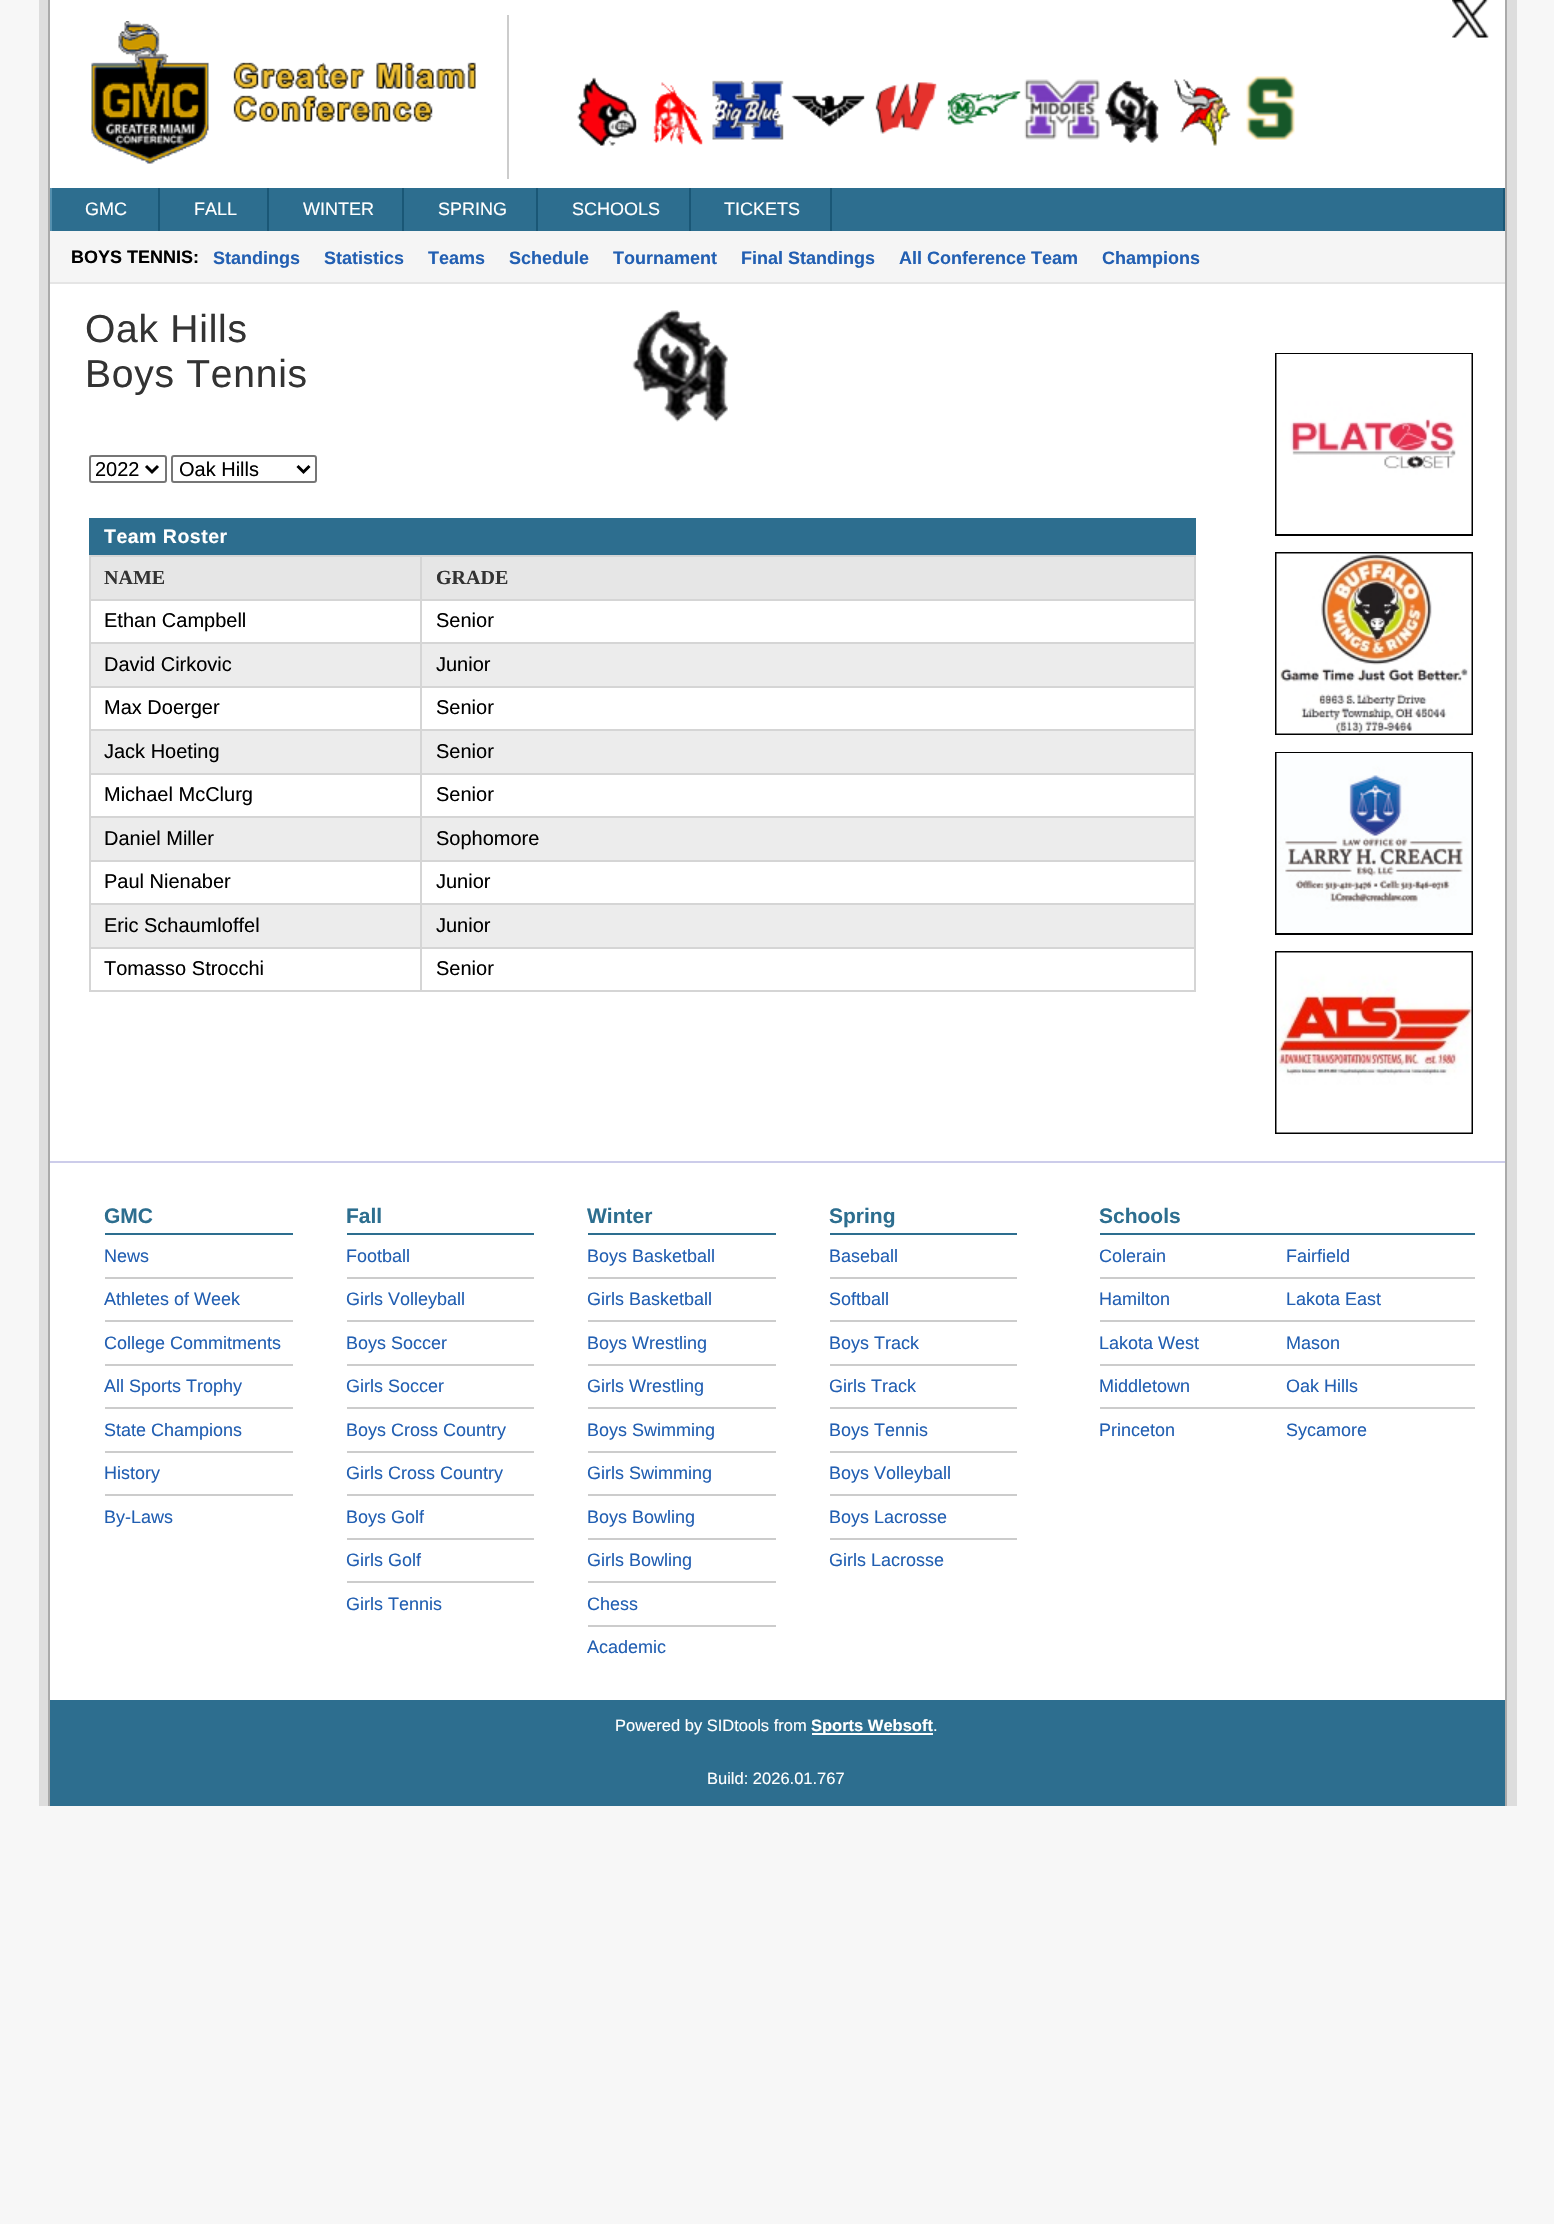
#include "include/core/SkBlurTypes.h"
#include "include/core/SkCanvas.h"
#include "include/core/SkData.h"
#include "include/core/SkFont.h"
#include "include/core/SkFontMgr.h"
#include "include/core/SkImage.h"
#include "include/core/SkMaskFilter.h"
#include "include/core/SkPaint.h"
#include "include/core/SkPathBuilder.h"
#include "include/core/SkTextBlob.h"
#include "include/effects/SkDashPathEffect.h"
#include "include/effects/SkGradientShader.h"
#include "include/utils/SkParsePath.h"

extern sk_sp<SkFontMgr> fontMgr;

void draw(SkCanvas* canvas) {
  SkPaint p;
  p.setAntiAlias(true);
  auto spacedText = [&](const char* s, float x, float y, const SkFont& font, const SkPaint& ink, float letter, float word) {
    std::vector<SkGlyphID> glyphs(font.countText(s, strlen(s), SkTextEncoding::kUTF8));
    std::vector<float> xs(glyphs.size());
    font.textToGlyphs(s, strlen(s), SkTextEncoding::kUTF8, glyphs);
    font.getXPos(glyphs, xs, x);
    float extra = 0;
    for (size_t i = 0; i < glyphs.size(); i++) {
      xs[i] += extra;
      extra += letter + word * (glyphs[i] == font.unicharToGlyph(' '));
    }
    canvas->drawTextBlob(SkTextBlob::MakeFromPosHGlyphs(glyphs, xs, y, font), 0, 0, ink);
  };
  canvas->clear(SkColorSetRGB(247, 247, 247));
  p.setColor(SkColorSetRGB(221, 221, 221));
  canvas->drawRect(SkRect::MakeLTRB(39, 0, 1517, 1806), p);
  p.setColor(SK_ColorWHITE);
  canvas->drawRect(SkRect::MakeLTRB(50, 0, 1505, 1700), p);
  p.setColor(SkColorSetRGB(170, 170, 170));
  canvas->drawRect(SkRect::MakeLTRB(1505, 0, 1507, 1806), p);
  canvas->drawRect(SkRect::MakeLTRB(48, 0, 50, 1806), p);
  canvas->drawImageRect(SkImages::DeferredFromEncodedData(SkData::MakeFromFileName("images/1.png")), SkRect::MakeLTRB(91, 21, 476, 164), SkSamplingOptions());
  p.setColor(SkColorSetRGB(204, 204, 204));
  canvas->drawRect(SkRect::MakeLTRB(507, 15, 509, 179), p);
  canvas->drawImageRect(SkImages::DeferredFromEncodedData(SkData::MakeFromFileName("images/2.png")), SkRect::MakeLTRB(577, 76, 1295, 146), SkSamplingOptions());
  canvas->drawImageRect(SkImages::DeferredFromEncodedData(SkData::MakeFromFileName("images/3.png")), SkRect::MakeLTRB(1452, 0, 1489, 38), SkSamplingOptions());
  p.setColor(SkColorSetRGB(45, 110, 143));
  canvas->drawRect(SkRect::MakeLTRB(52, 188, 1503, 231), p);
  p.setColor(SkColorSetRGB(26, 87, 118));
  canvas->drawRect(SkRect::MakeLTRB(158, 188, 160, 233), p);
  p.setColor(SkColorSetRGB(84, 144, 175));
  canvas->drawRect(SkRect::MakeLTRB(50, 188, 52, 233), p);
  p.setColor(SkColorSetRGB(26, 87, 118));
  canvas->drawRect(SkRect::MakeLTRB(267, 188, 269, 233), p);
  canvas->drawRect(SkRect::MakeLTRB(402, 188, 404, 233), p);
  canvas->drawRect(SkRect::MakeLTRB(536, 188, 538, 233), p);
  canvas->drawRect(SkRect::MakeLTRB(689, 188, 691, 233), p);
  canvas->drawRect(SkRect::MakeLTRB(830, 188, 832, 233), p);
  canvas->drawRect(SkRect::MakeLTRB(1503, 188, 1505, 233), p);
  p.setColor(SkColorSetRGB(245, 245, 245));
  canvas->drawRect(SkRect::MakeLTRB(50, 231, 1505, 282), p);
  p.setColor(SkColorSetRGB(229, 229, 229));
  canvas->drawRect(SkRect::MakeLTRB(50, 282, 1505, 284), p);
  canvas->drawImageRect(SkImages::DeferredFromEncodedData(SkData::MakeFromFileName("images/4.png")), SkRect::MakeLTRB(632, 310, 728, 422), SkSamplingOptions());
  p.setStyle(SkPaint::kStroke_Style);
  p.setStrokeWidth(2);
  p.setColor(SkColorSetRGB(118, 118, 118));
  canvas->drawRoundRect(SkRect::MakeLTRB(90, 456, 166, 482), 2, 2, p);
  p.setStrokeWidth(3);
  p.setColor(SK_ColorBLACK);
  canvas->drawPath(SkPathBuilder().moveTo(146, 466).lineTo(152, 472).lineTo(158, 466).detach(), p);
  p.setStrokeWidth(2);
  p.setColor(SkColorSetRGB(118, 118, 118));
  canvas->drawRoundRect(SkRect::MakeLTRB(172, 456, 316, 482), 2, 2, p);
  p.setStrokeWidth(3);
  p.setColor(SK_ColorBLACK);
  canvas->drawPath(SkPathBuilder().moveTo(297.5f, 466).lineTo(303.5f, 472).lineTo(309.5f, 466).detach(), p);
  p.setStyle(SkPaint::kFill_Style);
  p.setColor(SkColorSetRGB(213, 213, 213));
  canvas->drawRect(SkRect::MakeLTRB(89, 990, 1196, 992), p);
  p.setColor(SkColorSetRGB(45, 110, 143));
  canvas->drawRect(SkRect::MakeLTRB(89, 518, 1194, 555), p);
  canvas->drawRect(SkRect::MakeLTRB(1194, 518, 1196, 557), p);
  p.setColor(SkColorSetRGB(230, 230, 230));
  canvas->drawRect(SkRect::MakeLTRB(91, 557, 420, 599), p);
  p.setColor(SkColorSetRGB(213, 213, 213));
  canvas->drawRect(SkRect::MakeLTRB(420, 555, 1196, 557), p);
  canvas->drawRect(SkRect::MakeLTRB(420, 599, 1196, 601), p);
  canvas->drawRect(SkRect::MakeLTRB(420, 642, 1196, 644), p);
  p.setColor(SkColorSetRGB(236, 236, 236));
  canvas->drawRect(SkRect::MakeLTRB(91, 644, 1194, 686), p);
  p.setColor(SkColorSetRGB(213, 213, 213));
  canvas->drawRect(SkRect::MakeLTRB(420, 686, 1196, 688), p);
  canvas->drawRect(SkRect::MakeLTRB(420, 729, 1196, 731), p);
  p.setColor(SkColorSetRGB(236, 236, 236));
  canvas->drawRect(SkRect::MakeLTRB(91, 731, 1194, 773), p);
  p.setColor(SkColorSetRGB(213, 213, 213));
  canvas->drawRect(SkRect::MakeLTRB(420, 773, 1196, 775), p);
  canvas->drawRect(SkRect::MakeLTRB(420, 816, 1196, 818), p);
  p.setColor(SkColorSetRGB(236, 236, 236));
  canvas->drawRect(SkRect::MakeLTRB(91, 818, 1194, 860), p);
  p.setColor(SkColorSetRGB(213, 213, 213));
  canvas->drawRect(SkRect::MakeLTRB(420, 860, 1196, 862), p);
  canvas->drawRect(SkRect::MakeLTRB(420, 903, 1196, 905), p);
  p.setColor(SkColorSetRGB(236, 236, 236));
  canvas->drawRect(SkRect::MakeLTRB(91, 905, 1194, 947), p);
  p.setColor(SkColorSetRGB(213, 213, 213));
  canvas->drawRect(SkRect::MakeLTRB(420, 947, 1196, 949), p);
  canvas->drawRect(SkRect::MakeLTRB(420, 947, 422, 992), p);
  canvas->drawRect(SkRect::MakeLTRB(89, 947, 422, 949), p);
  canvas->drawRect(SkRect::MakeLTRB(420, 903, 422, 948), p);
  canvas->drawRect(SkRect::MakeLTRB(89, 903, 422, 905), p);
  canvas->drawRect(SkRect::MakeLTRB(420, 860, 422, 905), p);
  canvas->drawRect(SkRect::MakeLTRB(89, 860, 422, 862), p);
  canvas->drawRect(SkRect::MakeLTRB(420, 816, 422, 861), p);
  canvas->drawRect(SkRect::MakeLTRB(89, 816, 422, 818), p);
  canvas->drawRect(SkRect::MakeLTRB(420, 773, 422, 818), p);
  canvas->drawRect(SkRect::MakeLTRB(89, 773, 422, 775), p);
  canvas->drawRect(SkRect::MakeLTRB(420, 729, 422, 774), p);
  canvas->drawRect(SkRect::MakeLTRB(89, 729, 422, 731), p);
  canvas->drawRect(SkRect::MakeLTRB(420, 686, 422, 731), p);
  canvas->drawRect(SkRect::MakeLTRB(89, 686, 422, 688), p);
  canvas->drawRect(SkRect::MakeLTRB(420, 642, 422, 687), p);
  canvas->drawRect(SkRect::MakeLTRB(89, 642, 422, 644), p);
  canvas->drawRect(SkRect::MakeLTRB(420, 599, 422, 644), p);
  canvas->drawRect(SkRect::MakeLTRB(89, 599, 422, 601), p);
  canvas->drawRect(SkRect::MakeLTRB(420, 555, 422, 600), p);
  canvas->drawRect(SkRect::MakeLTRB(89, 555, 422, 557), p);
  canvas->drawRect(SkRect::MakeLTRB(89, 947, 91, 992), p);
  canvas->drawRect(SkRect::MakeLTRB(89, 903, 91, 948), p);
  canvas->drawRect(SkRect::MakeLTRB(89, 860, 91, 905), p);
  canvas->drawRect(SkRect::MakeLTRB(89, 816, 91, 861), p);
  canvas->drawRect(SkRect::MakeLTRB(89, 773, 91, 818), p);
  canvas->drawRect(SkRect::MakeLTRB(89, 729, 91, 774), p);
  canvas->drawRect(SkRect::MakeLTRB(89, 686, 91, 731), p);
  canvas->drawRect(SkRect::MakeLTRB(89, 642, 91, 687), p);
  canvas->drawRect(SkRect::MakeLTRB(89, 599, 91, 644), p);
  canvas->drawRect(SkRect::MakeLTRB(89, 555, 91, 600), p);
  p.setColor(SkColorSetRGB(230, 230, 230));
  canvas->drawRect(SkRect::MakeLTRB(422, 557, 1194, 599), p);
  p.setColor(SkColorSetRGB(213, 213, 213));
  canvas->drawRect(SkRect::MakeLTRB(1194, 947, 1196, 992), p);
  canvas->drawRect(SkRect::MakeLTRB(1194, 903, 1196, 948), p);
  canvas->drawRect(SkRect::MakeLTRB(1194, 860, 1196, 905), p);
  canvas->drawRect(SkRect::MakeLTRB(1194, 816, 1196, 861), p);
  canvas->drawRect(SkRect::MakeLTRB(1194, 773, 1196, 818), p);
  canvas->drawRect(SkRect::MakeLTRB(1194, 729, 1196, 774), p);
  canvas->drawRect(SkRect::MakeLTRB(1194, 686, 1196, 731), p);
  canvas->drawRect(SkRect::MakeLTRB(1194, 642, 1196, 687), p);
  canvas->drawRect(SkRect::MakeLTRB(1194, 599, 1196, 644), p);
  canvas->drawRect(SkRect::MakeLTRB(1194, 555, 1196, 600), p);
  p.setStyle(SkPaint::kStroke_Style);
  p.setStrokeWidth(2);
  p.setColor(SK_ColorBLACK);
  canvas->drawRect(SkRect::MakeLTRB(1276, 354, 1472, 535), p);
  canvas->drawImageRect(SkImages::DeferredFromEncodedData(SkData::MakeFromFileName("images/5.png")), SkRect::MakeLTRB(1276, 354, 1472, 534), SkSamplingOptions());
  canvas->drawRect(SkRect::MakeLTRB(1276, 553, 1472, 734), p);
  canvas->drawImageRect(SkImages::DeferredFromEncodedData(SkData::MakeFromFileName("images/6.png")), SkRect::MakeLTRB(1276, 553, 1472, 734), SkSamplingOptions());
  canvas->drawRect(SkRect::MakeLTRB(1276, 753, 1472, 934), p);
  canvas->drawImageRect(SkImages::DeferredFromEncodedData(SkData::MakeFromFileName("images/7.png")), SkRect::MakeLTRB(1276, 753, 1472, 933), SkSamplingOptions());
  canvas->drawRect(SkRect::MakeLTRB(1276, 952, 1472, 1133), p);
  canvas->drawImageRect(SkImages::DeferredFromEncodedData(SkData::MakeFromFileName("images/8.png")), SkRect::MakeLTRB(1276, 952, 1472, 1133), SkSamplingOptions());
  p.setStyle(SkPaint::kFill_Style);
  p.setColor(SkColorSetRGB(204, 204, 234));
  canvas->drawRect(SkRect::MakeLTRB(50, 1161, 1505, 1163), p);
  p.setColor(SkColorSetRGB(45, 110, 143));
  canvas->drawRect(SkRect::MakeLTRB(105, 1233, 293, 1235), p);
  p.setColor(SkColorSetRGB(204, 204, 204));
  canvas->drawRect(SkRect::MakeLTRB(105, 1277, 293, 1279), p);
  canvas->drawRect(SkRect::MakeLTRB(105, 1320, 293, 1322), p);
  canvas->drawRect(SkRect::MakeLTRB(105, 1364, 293, 1366), p);
  canvas->drawRect(SkRect::MakeLTRB(105, 1407, 293, 1409), p);
  canvas->drawRect(SkRect::MakeLTRB(105, 1451, 293, 1453), p);
  canvas->drawRect(SkRect::MakeLTRB(105, 1494, 293, 1496), p);
  p.setColor(SkColorSetRGB(45, 110, 143));
  canvas->drawRect(SkRect::MakeLTRB(347, 1233, 534, 1235), p);
  p.setColor(SkColorSetRGB(204, 204, 204));
  canvas->drawRect(SkRect::MakeLTRB(347, 1277, 534, 1279), p);
  canvas->drawRect(SkRect::MakeLTRB(347, 1320, 534, 1322), p);
  canvas->drawRect(SkRect::MakeLTRB(347, 1364, 534, 1366), p);
  canvas->drawRect(SkRect::MakeLTRB(347, 1407, 534, 1409), p);
  canvas->drawRect(SkRect::MakeLTRB(347, 1451, 534, 1453), p);
  canvas->drawRect(SkRect::MakeLTRB(347, 1494, 534, 1496), p);
  canvas->drawRect(SkRect::MakeLTRB(347, 1538, 534, 1540), p);
  canvas->drawRect(SkRect::MakeLTRB(347, 1581, 534, 1583), p);
  p.setColor(SkColorSetRGB(45, 110, 143));
  canvas->drawRect(SkRect::MakeLTRB(588, 1233, 776, 1235), p);
  p.setColor(SkColorSetRGB(204, 204, 204));
  canvas->drawRect(SkRect::MakeLTRB(588, 1277, 776, 1279), p);
  canvas->drawRect(SkRect::MakeLTRB(588, 1320, 776, 1322), p);
  canvas->drawRect(SkRect::MakeLTRB(588, 1364, 776, 1366), p);
  canvas->drawRect(SkRect::MakeLTRB(588, 1407, 776, 1409), p);
  canvas->drawRect(SkRect::MakeLTRB(588, 1451, 776, 1453), p);
  canvas->drawRect(SkRect::MakeLTRB(588, 1494, 776, 1496), p);
  canvas->drawRect(SkRect::MakeLTRB(588, 1538, 776, 1540), p);
  canvas->drawRect(SkRect::MakeLTRB(588, 1581, 776, 1583), p);
  canvas->drawRect(SkRect::MakeLTRB(588, 1625, 776, 1627), p);
  p.setColor(SkColorSetRGB(45, 110, 143));
  canvas->drawRect(SkRect::MakeLTRB(830, 1233, 1017, 1235), p);
  p.setColor(SkColorSetRGB(204, 204, 204));
  canvas->drawRect(SkRect::MakeLTRB(830, 1277, 1017, 1279), p);
  canvas->drawRect(SkRect::MakeLTRB(830, 1320, 1017, 1322), p);
  canvas->drawRect(SkRect::MakeLTRB(830, 1364, 1017, 1366), p);
  canvas->drawRect(SkRect::MakeLTRB(830, 1407, 1017, 1409), p);
  canvas->drawRect(SkRect::MakeLTRB(830, 1451, 1017, 1453), p);
  canvas->drawRect(SkRect::MakeLTRB(830, 1494, 1017, 1496), p);
  canvas->drawRect(SkRect::MakeLTRB(830, 1538, 1017, 1540), p);
  p.setColor(SkColorSetRGB(45, 110, 143));
  canvas->drawRect(SkRect::MakeLTRB(1100, 1233, 1475, 1235), p);
  p.setColor(SkColorSetRGB(204, 204, 204));
  canvas->drawRect(SkRect::MakeLTRB(1100, 1277, 1475, 1279), p);
  canvas->drawRect(SkRect::MakeLTRB(1100, 1320, 1475, 1322), p);
  canvas->drawRect(SkRect::MakeLTRB(1100, 1364, 1475, 1366), p);
  canvas->drawRect(SkRect::MakeLTRB(1100, 1407, 1475, 1409), p);
  p.setColor(SkColorSetRGB(45, 110, 143));
  canvas->drawRect(SkRect::MakeLTRB(50, 1700, 1505, 1806), p);
  p.setColor(SK_ColorWHITE);
  canvas->drawRect(SkRect::MakeLTRB(812, 1733, 933, 1735), p);
  SkFont font1(fontMgr->matchFamilyStyle("Liberation Sans", SkFontStyle::Normal()), 18);
  font1.setSubpixel(true);
  canvas->drawString("GMC", 85, 215, font1, p);
  canvas->drawString("FALL", 194, 215, font1, p);
  canvas->drawString("WINTER", 303, 215, font1, p);
  canvas->drawString("SPRING", 438, 215, font1, p);
  canvas->drawString("SCHOOLS", 572, 215, font1, p);
  canvas->drawString("TICKETS", 724, 215, font1, p);
  SkFont font2(fontMgr->matchFamilyStyle("Liberation Sans", SkFontStyle::Bold()), 18);
  font2.setSubpixel(true);
  p.setColor(SK_ColorBLACK);
  canvas->drawString("BOYS TENNIS:", 71, 263, font2, p);
  p.setColor(SkColorSetRGB(34, 95, 178));
  canvas->drawString("Standings", 213, 264, font2, p);
  canvas->drawString("Statistics", 324, 264, font2, p);
  canvas->drawString("Teams", 428, 264, font2, p);
  canvas->drawString("Schedule", 509, 264, font2, p);
  canvas->drawString("Tournament", 613, 264, font2, p);
  canvas->drawString("Final Standings", 741, 264, font2, p);
  canvas->drawString("All Conference Team", 899, 264, font2, p);
  canvas->drawString("Champions", 1102, 264, font2, p);
  SkFont font3(fontMgr->matchFamilyStyle("Liberation Sans", SkFontStyle::Normal()), 39);
  font3.setSubpixel(true);
  p.setColor(SkColorSetRGB(51, 51, 51));
  spacedText("Oak Hills", 85, 342, font3, p, 0.75f, 0);
  spacedText("Boys Tennis", 85, 387, font3, p, 0.75f, 0);
  SkFont font4(fontMgr->matchFamilyStyle("Liberation Sans", SkFontStyle::Normal()), 20);
  font4.setSubpixel(true);
  p.setColor(SK_ColorBLACK);
  canvas->drawString("2022", 95, 476, font4, p);
  canvas->drawString("Oak Hills", 179, 476, font4, p);
  SkFont font5(fontMgr->matchFamilyStyle("Liberation Sans", SkFontStyle::Bold()), 19.5f);
  font5.setSubpixel(true);
  p.setColor(SK_ColorWHITE);
  spacedText("Team Roster", 104, 543, font5, p, 0.5f, 0);
  SkFont font6(fontMgr->matchFamilyStyle("Liberation Serif", SkFontStyle::Bold()), 20);
  font6.setSubpixel(true);
  p.setColor(SkColorSetRGB(51, 51, 51));
  canvas->drawString("NAME", 104, 584, font6, p);
  canvas->drawString("GRADE", 436, 584, font6, p);
  p.setColor(SK_ColorBLACK);
  canvas->drawString("Ethan Campbell", 104, 627, font4, p);
  canvas->drawString("Senior", 436, 627, font4, p);
  canvas->drawString("David Cirkovic", 104, 671, font4, p);
  canvas->drawString("Junior", 436, 671, font4, p);
  canvas->drawString("Max Doerger", 104, 714, font4, p);
  canvas->drawString("Senior", 436, 714, font4, p);
  canvas->drawString("Jack Hoeting", 104, 758, font4, p);
  canvas->drawString("Senior", 436, 758, font4, p);
  canvas->drawString("Michael McClurg", 104, 801, font4, p);
  canvas->drawString("Senior", 436, 801, font4, p);
  canvas->drawString("Daniel Miller", 104, 845, font4, p);
  canvas->drawString("Sophomore", 436, 845, font4, p);
  canvas->drawString("Paul Nienaber", 104, 888, font4, p);
  canvas->drawString("Junior", 436, 888, font4, p);
  canvas->drawString("Eric Schaumloffel", 104, 932, font4, p);
  canvas->drawString("Junior", 436, 932, font4, p);
  canvas->drawString("Tomasso Strocchi", 104, 975, font4, p);
  canvas->drawString("Senior", 436, 975, font4, p);
  SkFont font7(fontMgr->matchFamilyStyle("Liberation Sans", SkFontStyle::Bold()), 21);
  font7.setSubpixel(true);
  p.setColor(SkColorSetRGB(45, 110, 143));
  canvas->drawString("GMC", 104, 1223, font7, p);
  p.setColor(SkColorSetRGB(34, 95, 178));
  canvas->drawString("News", 104, 1262, font1, p);
  canvas->drawString("Athletes of Week", 104, 1305, font1, p);
  canvas->drawString("College Commitments", 104, 1349, font1, p);
  canvas->drawString("All Sports Trophy", 104, 1392, font1, p);
  canvas->drawString("State Champions", 104, 1436, font1, p);
  canvas->drawString("History", 104, 1479, font1, p);
  canvas->drawString("By-Laws", 104, 1523, font1, p);
  p.setColor(SkColorSetRGB(45, 110, 143));
  canvas->drawString("Fall", 346, 1223, font7, p);
  p.setColor(SkColorSetRGB(34, 95, 178));
  canvas->drawString("Football", 346, 1262, font1, p);
  canvas->drawString("Girls Volleyball", 346, 1305, font1, p);
  canvas->drawString("Boys Soccer", 346, 1349, font1, p);
  canvas->drawString("Girls Soccer", 346, 1392, font1, p);
  canvas->drawString("Boys Cross Country", 346, 1436, font1, p);
  canvas->drawString("Girls Cross Country", 346, 1479, font1, p);
  canvas->drawString("Boys Golf", 346, 1523, font1, p);
  canvas->drawString("Girls Golf", 346, 1566, font1, p);
  canvas->drawString("Girls Tennis", 346, 1610, font1, p);
  p.setColor(SkColorSetRGB(45, 110, 143));
  canvas->drawString("Winter", 587, 1223, font7, p);
  p.setColor(SkColorSetRGB(34, 95, 178));
  canvas->drawString("Boys Basketball", 587, 1262, font1, p);
  canvas->drawString("Girls Basketball", 587, 1305, font1, p);
  canvas->drawString("Boys Wrestling", 587, 1349, font1, p);
  canvas->drawString("Girls Wrestling", 587, 1392, font1, p);
  canvas->drawString("Boys Swimming", 587, 1436, font1, p);
  canvas->drawString("Girls Swimming", 587, 1479, font1, p);
  canvas->drawString("Boys Bowling", 587, 1523, font1, p);
  canvas->drawString("Girls Bowling", 587, 1566, font1, p);
  canvas->drawString("Chess", 587, 1610, font1, p);
  canvas->drawString("Academic", 587, 1653, font1, p);
  p.setColor(SkColorSetRGB(45, 110, 143));
  canvas->drawString("Spring", 829, 1223, font7, p);
  p.setColor(SkColorSetRGB(34, 95, 178));
  canvas->drawString("Baseball", 829, 1262, font1, p);
  canvas->drawString("Softball", 829, 1305, font1, p);
  canvas->drawString("Boys Track", 829, 1349, font1, p);
  canvas->drawString("Girls Track", 829, 1392, font1, p);
  canvas->drawString("Boys Tennis", 829, 1436, font1, p);
  canvas->drawString("Boys Volleyball", 829, 1479, font1, p);
  canvas->drawString("Boys Lacrosse", 829, 1523, font1, p);
  canvas->drawString("Girls Lacrosse", 829, 1566, font1, p);
  p.setColor(SkColorSetRGB(45, 110, 143));
  canvas->drawString("Schools", 1099, 1223, font7, p);
  p.setColor(SkColorSetRGB(34, 95, 178));
  canvas->drawString("Colerain", 1099, 1262, font1, p);
  canvas->drawString("Hamilton", 1099, 1305, font1, p);
  canvas->drawString("Lakota West", 1099, 1349, font1, p);
  canvas->drawString("Middletown", 1099, 1392, font1, p);
  canvas->drawString("Princeton", 1099, 1436, font1, p);
  canvas->drawString("Fairfield", 1286, 1262, font1, p);
  canvas->drawString("Lakota East", 1286, 1305, font1, p);
  canvas->drawString("Mason", 1286, 1349, font1, p);
  canvas->drawString("Oak Hills", 1286, 1392, font1, p);
  canvas->drawString("Sycamore", 1286, 1436, font1, p);
  SkFont font8(fontMgr->matchFamilyStyle("Liberation Sans", SkFontStyle::Normal()), 16.5f);
  font8.setSubpixel(true);
  p.setColor(SK_ColorWHITE);
  canvas->drawString("Powered by SIDtools from", 615, 1731, font8, p);
  SkFont font9(fontMgr->matchFamilyStyle("Liberation Sans", SkFontStyle::Bold()), 16.5f);
  font9.setSubpixel(true);
  canvas->drawString("Sports Websoft", 811, 1731, font9, p);
  canvas->drawString(".", 933, 1731, font8, p);
  canvas->drawString("Build: 2026.01.767", 707, 1784, font8, p);
}
